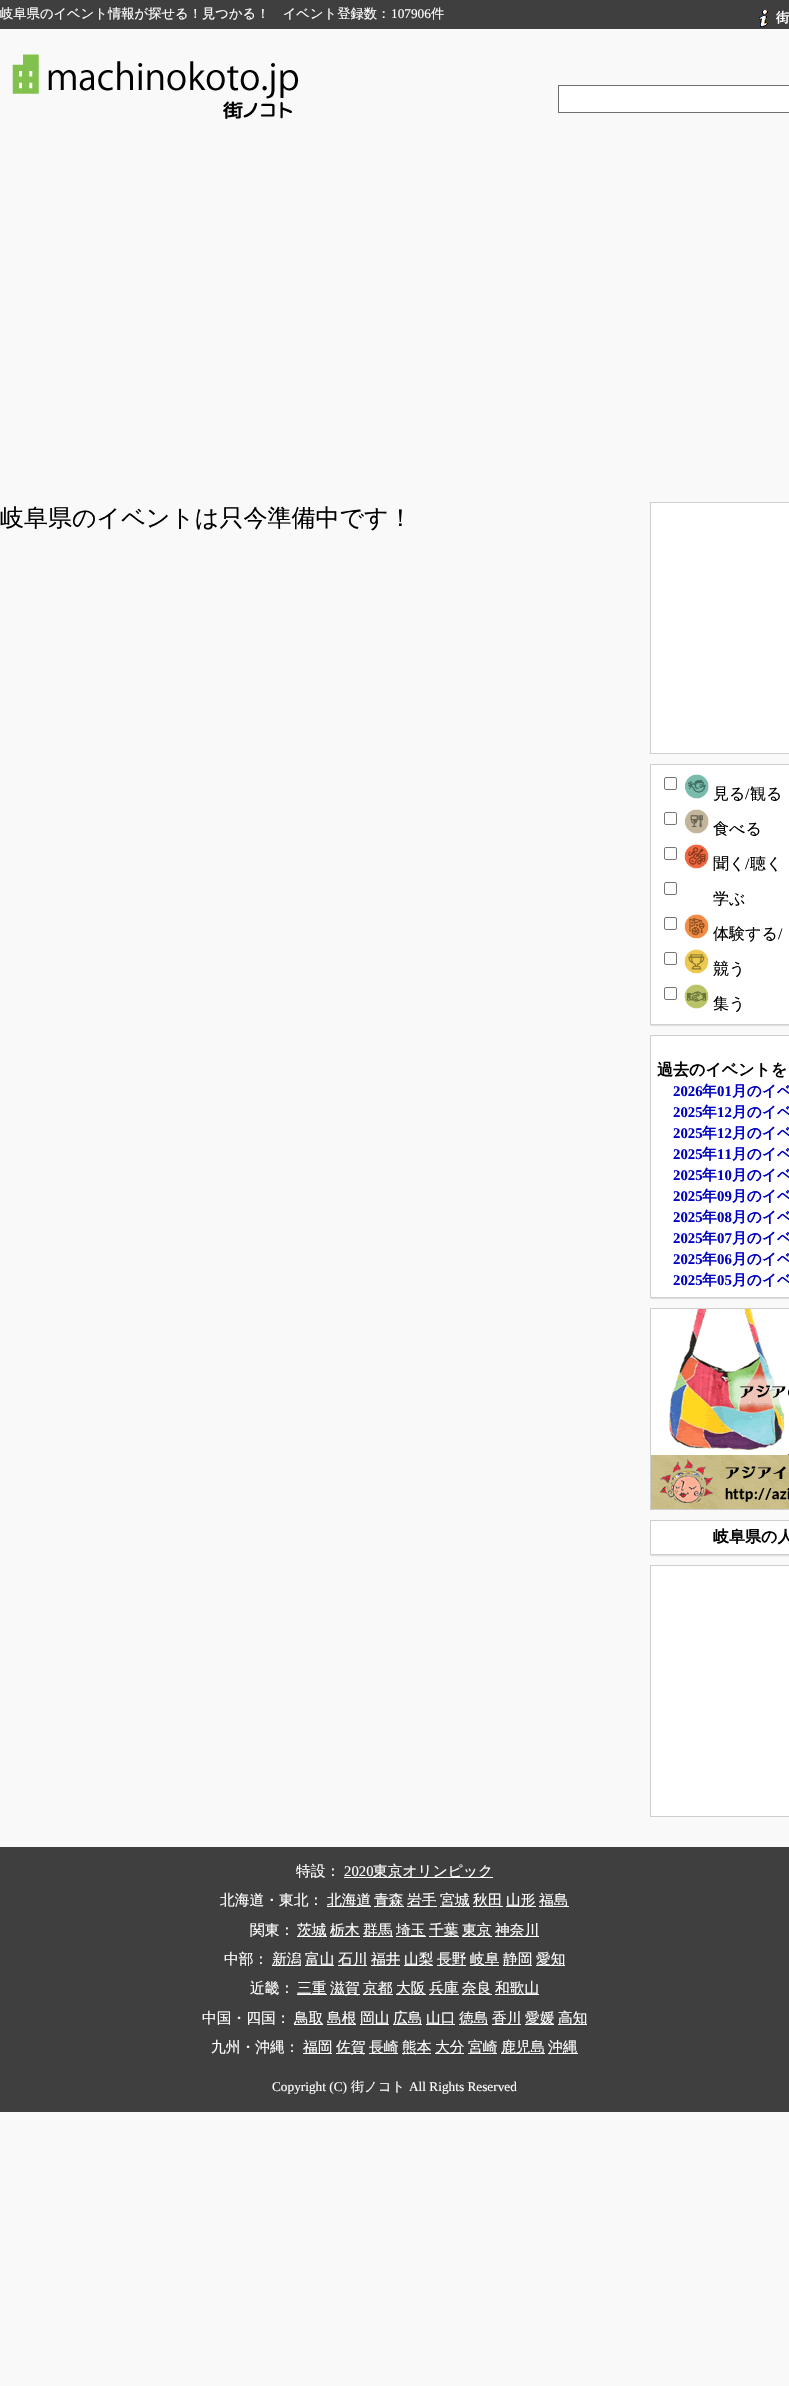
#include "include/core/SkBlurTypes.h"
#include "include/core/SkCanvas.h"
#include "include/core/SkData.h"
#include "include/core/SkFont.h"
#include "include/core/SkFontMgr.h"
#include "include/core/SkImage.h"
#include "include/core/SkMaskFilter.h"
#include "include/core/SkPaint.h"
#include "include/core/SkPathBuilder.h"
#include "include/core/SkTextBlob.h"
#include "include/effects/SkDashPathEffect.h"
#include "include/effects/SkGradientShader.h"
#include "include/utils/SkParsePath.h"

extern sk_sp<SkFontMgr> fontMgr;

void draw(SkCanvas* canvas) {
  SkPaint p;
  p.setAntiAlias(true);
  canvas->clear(SkColorSetRGB(249, 249, 249));
  p.setColor(SkColorSetRGB(63, 63, 63));
  canvas->drawRect(SkRect::MakeLTRB(0, 0, 789, 29), p);
  canvas->drawImageRect(SkImages::DeferredFromEncodedData(SkData::MakeFromFileName("images/1.png")), SkRect::MakeLTRB(759, 10, 768, 27), SkSamplingOptions());
  canvas->drawImageRect(SkImages::DeferredFromEncodedData(SkData::MakeFromFileName("images/2.png")), SkRect::MakeLTRB(12, 54, 298, 119), SkSamplingOptions());
  p.setColor(SK_ColorWHITE);
  canvas->drawRect(SkRect::MakeLTRB(558.5f, 85.5f, 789.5f, 112.5f), p);
  p.setStyle(SkPaint::kStroke_Style);
  p.setStrokeWidth(1);
  p.setColor(SkColorSetRGB(111, 111, 111));
  canvas->drawRect(SkRect::MakeLTRB(558.5f, 85.5f, 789.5f, 112.5f), p);
  p.setStyle(SkPaint::kFill_Style);
  p.setColor(SK_ColorWHITE);
  canvas->drawRect(SkRect::MakeLTRB(650.5f, 502.5f, 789.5f, 753.5f), p);
  p.setStyle(SkPaint::kStroke_Style);
  p.setColor(SkColorSetRGB(207, 207, 207));
  canvas->drawRect(SkRect::MakeLTRB(650.5f, 502.5f, 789.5f, 753.5f), p);
  p.setStyle(SkPaint::kFill_Style);
  p.setColor(SkColorSetARGB(26, 0, 0, 0));
  p.setMaskFilter(SkMaskFilter::MakeBlur(kNormal_SkBlurStyle, 0.5f));
  canvas->drawRect(SkRect::MakeLTRB(651, 765, 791, 1026), p);
  p.setMaskFilter(nullptr);
  p.setColor(SK_ColorWHITE);
  canvas->drawRect(SkRect::MakeLTRB(650.5f, 764.5f, 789.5f, 1024.5f), p);
  p.setStyle(SkPaint::kStroke_Style);
  p.setColor(SkColorSetRGB(207, 207, 207));
  canvas->drawRect(SkRect::MakeLTRB(650.5f, 764.5f, 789.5f, 1024.5f), p);
  p.setColor(SkColorSetRGB(118, 118, 118));
  canvas->drawRoundRect(SkRect::MakeLTRB(664.5f, 777.5f, 676.5f, 789.5f), 1.5f, 1.5f, p);
  canvas->drawImageRect(SkImages::DeferredFromEncodedData(SkData::MakeFromFileName("images/3.png")), SkRect::MakeLTRB(684, 774, 709, 799), SkSamplingOptions());
  canvas->drawRoundRect(SkRect::MakeLTRB(664.5f, 812.5f, 676.5f, 824.5f), 1.5f, 1.5f, p);
  canvas->drawImageRect(SkImages::DeferredFromEncodedData(SkData::MakeFromFileName("images/4.png")), SkRect::MakeLTRB(684, 809, 709, 834), SkSamplingOptions());
  canvas->drawRoundRect(SkRect::MakeLTRB(664.5f, 847.5f, 676.5f, 859.5f), 1.5f, 1.5f, p);
  canvas->drawImageRect(SkImages::DeferredFromEncodedData(SkData::MakeFromFileName("images/5.png")), SkRect::MakeLTRB(684, 844, 709, 869), SkSamplingOptions());
  canvas->drawRoundRect(SkRect::MakeLTRB(664.5f, 882.5f, 676.5f, 894.5f), 1.5f, 1.5f, p);
  canvas->drawRoundRect(SkRect::MakeLTRB(664.5f, 917.5f, 676.5f, 929.5f), 1.5f, 1.5f, p);
  canvas->drawImageRect(SkImages::DeferredFromEncodedData(SkData::MakeFromFileName("images/6.png")), SkRect::MakeLTRB(684, 914, 709, 939), SkSamplingOptions());
  canvas->drawRoundRect(SkRect::MakeLTRB(664.5f, 952.5f, 676.5f, 964.5f), 1.5f, 1.5f, p);
  canvas->drawImageRect(SkImages::DeferredFromEncodedData(SkData::MakeFromFileName("images/7.png")), SkRect::MakeLTRB(684, 949, 709, 974), SkSamplingOptions());
  canvas->drawRoundRect(SkRect::MakeLTRB(664.5f, 987.5f, 676.5f, 999.5f), 1.5f, 1.5f, p);
  canvas->drawImageRect(SkImages::DeferredFromEncodedData(SkData::MakeFromFileName("images/8.png")), SkRect::MakeLTRB(684, 984, 709, 1009), SkSamplingOptions());
  p.setStyle(SkPaint::kFill_Style);
  p.setColor(SkColorSetARGB(26, 0, 0, 0));
  p.setMaskFilter(SkMaskFilter::MakeBlur(kNormal_SkBlurStyle, 0.5f));
  canvas->drawRect(SkRect::MakeLTRB(651, 1036, 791, 1299), p);
  p.setMaskFilter(nullptr);
  p.setColor(SK_ColorWHITE);
  canvas->drawRect(SkRect::MakeLTRB(650.5f, 1035.5f, 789.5f, 1297.5f), p);
  p.setStyle(SkPaint::kStroke_Style);
  p.setColor(SkColorSetRGB(207, 207, 207));
  canvas->drawRect(SkRect::MakeLTRB(650.5f, 1035.5f, 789.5f, 1297.5f), p);
  canvas->drawRect(SkRect::MakeLTRB(650.5f, 1308.5f, 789.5f, 1509.5f), p);
  canvas->drawImageRect(SkImages::DeferredFromEncodedData(SkData::MakeFromFileName("images/9.png")), SkRect::MakeLTRB(651, 1309, 789, 1509), SkSamplingOptions());
  p.setStyle(SkPaint::kFill_Style);
  p.setColor(SkColorSetARGB(26, 0, 0, 0));
  p.setMaskFilter(SkMaskFilter::MakeBlur(kNormal_SkBlurStyle, 0.5f));
  canvas->drawRect(SkRect::MakeLTRB(651, 1521, 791, 1556), p);
  p.setMaskFilter(nullptr);
  p.setColor(SK_ColorWHITE);
  canvas->drawRect(SkRect::MakeLTRB(650.5f, 1520.5f, 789.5f, 1554.5f), p);
  p.setStyle(SkPaint::kStroke_Style);
  p.setColor(SkColorSetRGB(207, 207, 207));
  canvas->drawRect(SkRect::MakeLTRB(650.5f, 1520.5f, 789.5f, 1554.5f), p);
  p.setStyle(SkPaint::kFill_Style);
  p.setColor(SK_ColorWHITE);
  canvas->drawRect(SkRect::MakeLTRB(650.5f, 1565.5f, 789.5f, 1816.5f), p);
  p.setStyle(SkPaint::kStroke_Style);
  p.setColor(SkColorSetRGB(207, 207, 207));
  canvas->drawRect(SkRect::MakeLTRB(650.5f, 1565.5f, 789.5f, 1816.5f), p);
  p.setStyle(SkPaint::kFill_Style);
  p.setColor(SkColorSetRGB(63, 63, 63));
  canvas->drawRect(SkRect::MakeLTRB(0, 1847, 789, 2112), p);
  p.setColor(SK_ColorWHITE);
  canvas->drawRect(SkRect::MakeLTRB(344, 1877, 493, 1878), p);
  canvas->drawRect(SkRect::MakeLTRB(327, 1906, 371, 1907), p);
  canvas->drawRect(SkRect::MakeLTRB(374, 1906, 404, 1907), p);
  canvas->drawRect(SkRect::MakeLTRB(407, 1906, 437, 1907), p);
  canvas->drawRect(SkRect::MakeLTRB(440, 1906, 470, 1907), p);
  canvas->drawRect(SkRect::MakeLTRB(473, 1906, 503, 1907), p);
  canvas->drawRect(SkRect::MakeLTRB(506, 1906, 536, 1907), p);
  canvas->drawRect(SkRect::MakeLTRB(539, 1906, 569, 1907), p);
  canvas->drawRect(SkRect::MakeLTRB(297, 1936, 327, 1937), p);
  canvas->drawRect(SkRect::MakeLTRB(330, 1936, 360, 1937), p);
  canvas->drawRect(SkRect::MakeLTRB(363, 1936, 393, 1937), p);
  canvas->drawRect(SkRect::MakeLTRB(396, 1936, 426, 1937), p);
  canvas->drawRect(SkRect::MakeLTRB(429, 1936, 459, 1937), p);
  canvas->drawRect(SkRect::MakeLTRB(462, 1936, 492, 1937), p);
  canvas->drawRect(SkRect::MakeLTRB(495, 1936, 539, 1937), p);
  canvas->drawRect(SkRect::MakeLTRB(272, 1965, 301, 1966), p);
  canvas->drawRect(SkRect::MakeLTRB(305, 1965, 334, 1966), p);
  canvas->drawRect(SkRect::MakeLTRB(338, 1965, 367, 1966), p);
  canvas->drawRect(SkRect::MakeLTRB(371, 1965, 400, 1966), p);
  canvas->drawRect(SkRect::MakeLTRB(404, 1965, 433, 1966), p);
  canvas->drawRect(SkRect::MakeLTRB(437, 1965, 466, 1966), p);
  canvas->drawRect(SkRect::MakeLTRB(470, 1965, 499, 1966), p);
  canvas->drawRect(SkRect::MakeLTRB(503, 1965, 532, 1966), p);
  canvas->drawRect(SkRect::MakeLTRB(536, 1965, 565, 1966), p);
  canvas->drawRect(SkRect::MakeLTRB(297, 1994, 327, 1995), p);
  canvas->drawRect(SkRect::MakeLTRB(330, 1994, 360, 1995), p);
  canvas->drawRect(SkRect::MakeLTRB(363, 1994, 393, 1995), p);
  canvas->drawRect(SkRect::MakeLTRB(396, 1994, 426, 1995), p);
  canvas->drawRect(SkRect::MakeLTRB(429, 1994, 459, 1995), p);
  canvas->drawRect(SkRect::MakeLTRB(462, 1994, 492, 1995), p);
  canvas->drawRect(SkRect::MakeLTRB(495, 1994, 539, 1995), p);
  canvas->drawRect(SkRect::MakeLTRB(294, 2024, 323, 2025), p);
  canvas->drawRect(SkRect::MakeLTRB(327, 2024, 356, 2025), p);
  canvas->drawRect(SkRect::MakeLTRB(360, 2024, 389, 2025), p);
  canvas->drawRect(SkRect::MakeLTRB(393, 2024, 422, 2025), p);
  canvas->drawRect(SkRect::MakeLTRB(426, 2024, 455, 2025), p);
  canvas->drawRect(SkRect::MakeLTRB(459, 2024, 488, 2025), p);
  canvas->drawRect(SkRect::MakeLTRB(492, 2024, 521, 2025), p);
  canvas->drawRect(SkRect::MakeLTRB(525, 2024, 554, 2025), p);
  canvas->drawRect(SkRect::MakeLTRB(558, 2024, 587, 2025), p);
  canvas->drawRect(SkRect::MakeLTRB(303, 2053, 332, 2054), p);
  canvas->drawRect(SkRect::MakeLTRB(336, 2053, 365, 2054), p);
  canvas->drawRect(SkRect::MakeLTRB(369, 2053, 398, 2054), p);
  canvas->drawRect(SkRect::MakeLTRB(402, 2053, 431, 2054), p);
  canvas->drawRect(SkRect::MakeLTRB(435, 2053, 464, 2054), p);
  canvas->drawRect(SkRect::MakeLTRB(468, 2053, 497, 2054), p);
  canvas->drawRect(SkRect::MakeLTRB(501, 2053, 545, 2054), p);
  canvas->drawRect(SkRect::MakeLTRB(548, 2053, 578, 2054), p);
  SkFont font1(fontMgr->matchFamilyStyle("WenQuanYi Zen Hei", SkFontStyle(500, SkFontStyle::kNormal_Width, SkFontStyle::kUpright_Slant)), 13.3f);
  font1.setSubpixel(true);
  canvas->drawString("岐阜県のイベント情報が探せる！見つかる！　イベント登録数：", 0, 18, font1, p);
  SkFont font2(fontMgr->matchFamilyStyle("Liberation Serif", SkFontStyle::Normal()), 13.3f);
  font2.setSubpixel(true);
  canvas->drawString("107906", 391, 18, font2, p);
  canvas->drawString("件", 431, 18, font1, p);
  SkFont font3(fontMgr->matchFamilyStyle("WenQuanYi Zen Hei", SkFontStyle::Bold()), 13.3f);
  font3.setSubpixel(true);
  canvas->drawString("街", 776, 22, font3, p);
  SkFont font4(fontMgr->matchFamilyStyle("WenQuanYi Zen Hei", SkFontStyle(500, SkFontStyle::kNormal_Width, SkFontStyle::kUpright_Slant)), 24);
  font4.setSubpixel(true);
  p.setColor(SK_ColorBLACK);
  canvas->drawString("岐阜県のイベントは只今準備中です！", 0, 526, font4, p);
  SkFont font5(fontMgr->matchFamilyStyle("WenQuanYi Zen Hei", SkFontStyle(500, SkFontStyle::kNormal_Width, SkFontStyle::kUpright_Slant)), 16);
  font5.setSubpixel(true);
  canvas->drawString("見る", 713, 799, font5, p);
  SkFont font6(fontMgr->matchFamilyStyle("Liberation Serif", SkFontStyle::Normal()), 16);
  font6.setSubpixel(true);
  canvas->drawString("/", 745, 799, font6, p);
  canvas->drawString("観る", 750, 799, font5, p);
  canvas->drawString("食べる", 713, 834, font5, p);
  canvas->drawString("聞く", 713, 869, font5, p);
  canvas->drawString("/", 745, 869, font6, p);
  canvas->drawString("聴く", 750, 869, font5, p);
  canvas->drawString("学ぶ", 713, 904, font5, p);
  canvas->drawString("体験する", 713, 939, font5, p);
  canvas->drawString("/", 778, 939, font6, p);
  canvas->drawString("競う", 713, 974, font5, p);
  canvas->drawString("集う", 713, 1009, font5, p);
  SkFont font7(fontMgr->matchFamilyStyle("WenQuanYi Zen Hei", SkFontStyle::Bold()), 16);
  font7.setSubpixel(true);
  canvas->drawString("過去のイベントを", 657, 1075, font7, p);
  SkFont font8(fontMgr->matchFamilyStyle("Liberation Serif", SkFontStyle::Bold()), 14.75f);
  font8.setSubpixel(true);
  p.setColor(SkColorSetRGB(0, 0, 192));
  canvas->drawString("2026", 673, 1096, font8, p);
  SkFont font9(fontMgr->matchFamilyStyle("WenQuanYi Zen Hei", SkFontStyle::Bold()), 14.75f);
  font9.setSubpixel(true);
  canvas->drawString("年", 702, 1096, font9, p);
  canvas->drawString("01", 717, 1096, font8, p);
  canvas->drawString("月のイベ", 732, 1096, font9, p);
  canvas->drawString("2025", 673, 1117, font8, p);
  canvas->drawString("年", 702, 1117, font9, p);
  canvas->drawString("12", 717, 1117, font8, p);
  canvas->drawString("月のイベ", 732, 1117, font9, p);
  canvas->drawString("2025", 673, 1138, font8, p);
  canvas->drawString("年", 702, 1138, font9, p);
  canvas->drawString("12", 717, 1138, font8, p);
  canvas->drawString("月のイベ", 732, 1138, font9, p);
  canvas->drawString("2025", 673, 1159, font8, p);
  canvas->drawString("年", 702, 1159, font9, p);
  canvas->drawString("11", 717, 1159, font8, p);
  canvas->drawString("月のイベ", 732, 1159, font9, p);
  canvas->drawString("2025", 673, 1180, font8, p);
  canvas->drawString("年", 702, 1180, font9, p);
  canvas->drawString("10", 717, 1180, font8, p);
  canvas->drawString("月のイベ", 732, 1180, font9, p);
  canvas->drawString("2025", 673, 1201, font8, p);
  canvas->drawString("年", 702, 1201, font9, p);
  canvas->drawString("09", 717, 1201, font8, p);
  canvas->drawString("月のイベ", 732, 1201, font9, p);
  canvas->drawString("2025", 673, 1222, font8, p);
  canvas->drawString("年", 702, 1222, font9, p);
  canvas->drawString("08", 717, 1222, font8, p);
  canvas->drawString("月のイベ", 732, 1222, font9, p);
  canvas->drawString("2025", 673, 1243, font8, p);
  canvas->drawString("年", 702, 1243, font9, p);
  canvas->drawString("07", 717, 1243, font8, p);
  canvas->drawString("月のイベ", 732, 1243, font9, p);
  canvas->drawString("2025", 673, 1264, font8, p);
  canvas->drawString("年", 702, 1264, font9, p);
  canvas->drawString("06", 717, 1264, font8, p);
  canvas->drawString("月のイベ", 732, 1264, font9, p);
  canvas->drawString("2025", 673, 1285, font8, p);
  canvas->drawString("年", 702, 1285, font9, p);
  canvas->drawString("05", 717, 1285, font8, p);
  canvas->drawString("月のイベ", 732, 1285, font9, p);
  p.setColor(SK_ColorBLACK);
  canvas->drawString("岐阜県の人", 713, 1542, font7, p);
  SkFont font10(fontMgr->matchFamilyStyle("WenQuanYi Zen Hei", SkFontStyle(500, SkFontStyle::kNormal_Width, SkFontStyle::kUpright_Slant)), 14.75f);
  font10.setSubpixel(true);
  p.setColor(SK_ColorWHITE);
  canvas->drawString("特設：", 296, 1876, font10, p);
  SkFont font11(fontMgr->matchFamilyStyle("Liberation Serif", SkFontStyle::Normal()), 14.75f);
  font11.setSubpixel(true);
  canvas->drawString("2020", 344, 1876, font11, p);
  canvas->drawString("東京オリンピック", 373, 1876, font10, p);
  canvas->drawString("北海道・東北：", 220, 1905, font10, p);
  canvas->drawString("北海道", 327, 1905, font10, p);
  canvas->drawString("青森", 374, 1905, font10, p);
  canvas->drawString("岩手", 407, 1905, font10, p);
  canvas->drawString("宮城", 440, 1905, font10, p);
  canvas->drawString("秋田", 473, 1905, font10, p);
  canvas->drawString("山形", 506, 1905, font10, p);
  canvas->drawString("福島", 539, 1905, font10, p);
  canvas->drawString("関東：", 250, 1935, font10, p);
  canvas->drawString("茨城", 297, 1935, font10, p);
  canvas->drawString("栃木", 330, 1935, font10, p);
  canvas->drawString("群馬", 363, 1935, font10, p);
  canvas->drawString("埼玉", 396, 1935, font10, p);
  canvas->drawString("千葉", 429, 1935, font10, p);
  canvas->drawString("東京", 462, 1935, font10, p);
  canvas->drawString("神奈川", 495, 1935, font10, p);
  canvas->drawString("中部：", 224, 1964, font10, p);
  canvas->drawString("新潟", 272, 1964, font10, p);
  canvas->drawString("富山", 305, 1964, font10, p);
  canvas->drawString("石川", 338, 1964, font10, p);
  canvas->drawString("福井", 371, 1964, font10, p);
  canvas->drawString("山梨", 404, 1964, font10, p);
  canvas->drawString("長野", 437, 1964, font10, p);
  canvas->drawString("岐阜", 470, 1964, font10, p);
  canvas->drawString("静岡", 503, 1964, font10, p);
  canvas->drawString("愛知", 536, 1964, font10, p);
  canvas->drawString("近畿：", 250, 1993, font10, p);
  canvas->drawString("三重", 297, 1993, font10, p);
  canvas->drawString("滋賀", 330, 1993, font10, p);
  canvas->drawString("京都", 363, 1993, font10, p);
  canvas->drawString("大阪", 396, 1993, font10, p);
  canvas->drawString("兵庫", 429, 1993, font10, p);
  canvas->drawString("奈良", 462, 1993, font10, p);
  canvas->drawString("和歌山", 495, 1993, font10, p);
  canvas->drawString("中国・四国：", 202, 2023, font10, p);
  canvas->drawString("鳥取", 294, 2023, font10, p);
  canvas->drawString("島根", 327, 2023, font10, p);
  canvas->drawString("岡山", 360, 2023, font10, p);
  canvas->drawString("広島", 393, 2023, font10, p);
  canvas->drawString("山口", 426, 2023, font10, p);
  canvas->drawString("徳島", 459, 2023, font10, p);
  canvas->drawString("香川", 492, 2023, font10, p);
  canvas->drawString("愛媛", 525, 2023, font10, p);
  canvas->drawString("高知", 558, 2023, font10, p);
  canvas->drawString("九州・沖縄：", 211, 2052, font10, p);
  canvas->drawString("福岡", 303, 2052, font10, p);
  canvas->drawString("佐賀", 336, 2052, font10, p);
  canvas->drawString("長崎", 369, 2052, font10, p);
  canvas->drawString("熊本", 402, 2052, font10, p);
  canvas->drawString("大分", 435, 2052, font10, p);
  canvas->drawString("宮崎", 468, 2052, font10, p);
  canvas->drawString("鹿児島", 501, 2052, font10, p);
  canvas->drawString("沖縄", 548, 2052, font10, p);
  canvas->drawString("Copyright (C)", 272, 2091, font2, p);
  canvas->drawString("街ノコト", 351, 2091, font1, p);
  canvas->drawString("All Rights Reserved", 409, 2091, font2, p);
}
